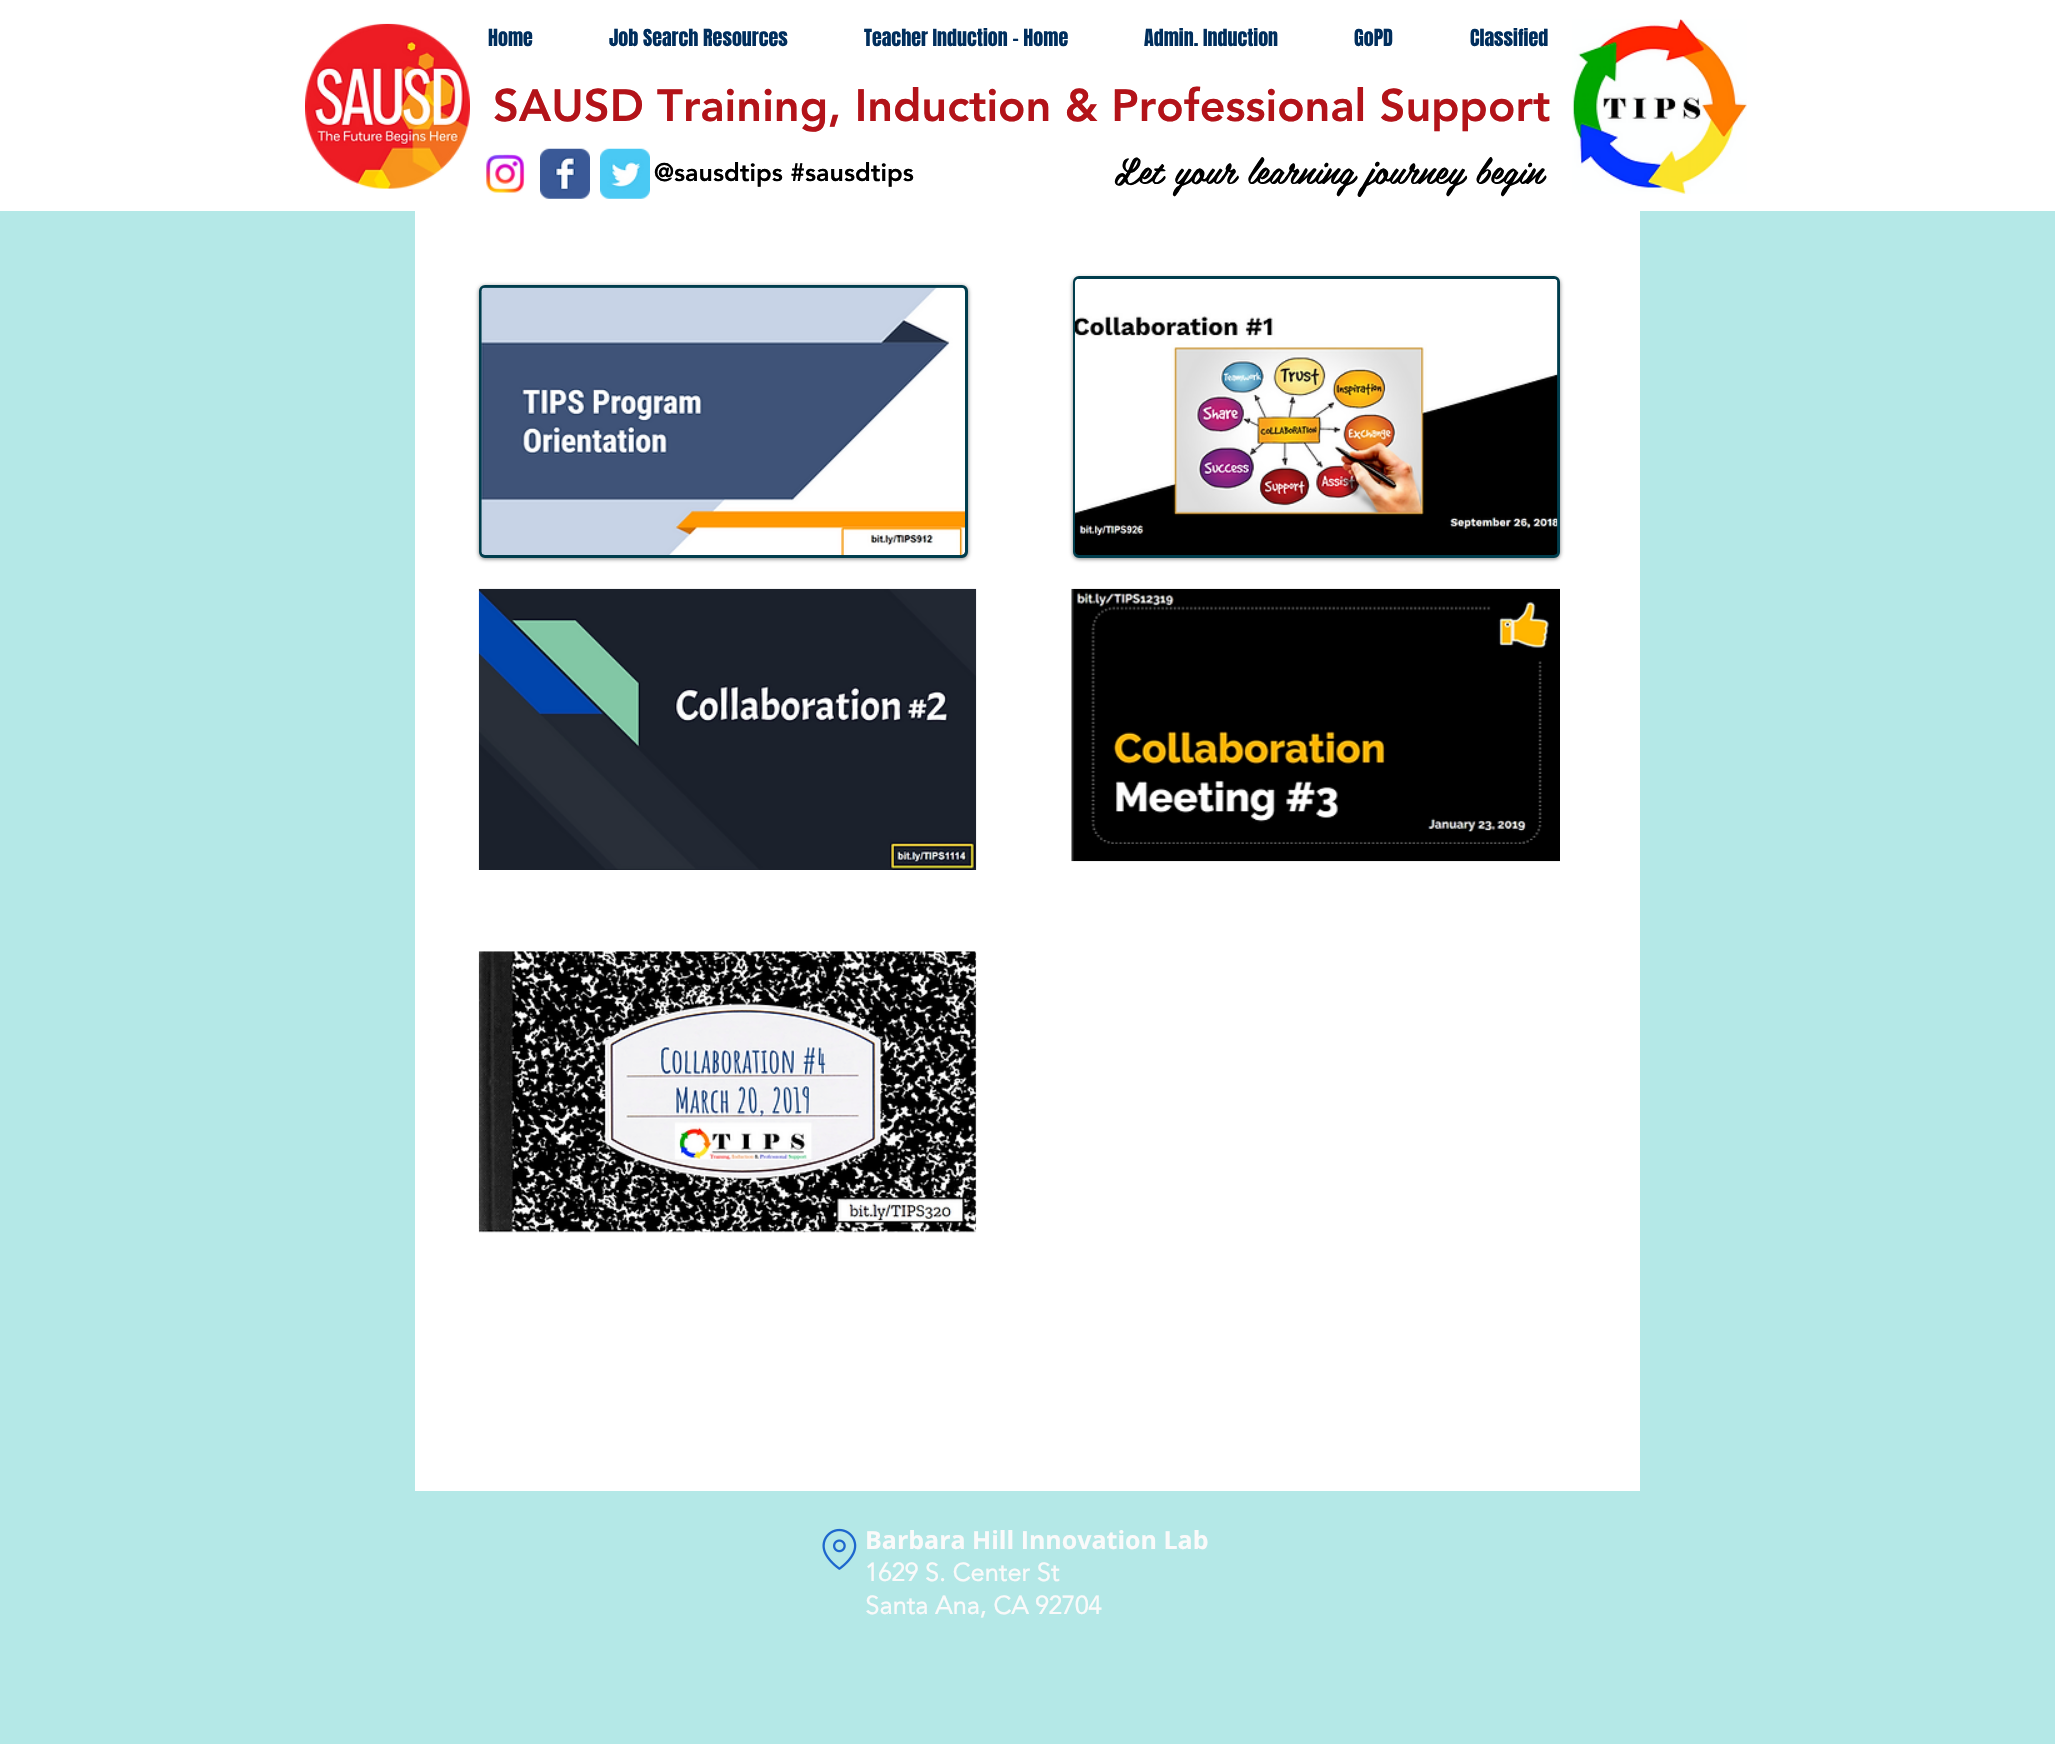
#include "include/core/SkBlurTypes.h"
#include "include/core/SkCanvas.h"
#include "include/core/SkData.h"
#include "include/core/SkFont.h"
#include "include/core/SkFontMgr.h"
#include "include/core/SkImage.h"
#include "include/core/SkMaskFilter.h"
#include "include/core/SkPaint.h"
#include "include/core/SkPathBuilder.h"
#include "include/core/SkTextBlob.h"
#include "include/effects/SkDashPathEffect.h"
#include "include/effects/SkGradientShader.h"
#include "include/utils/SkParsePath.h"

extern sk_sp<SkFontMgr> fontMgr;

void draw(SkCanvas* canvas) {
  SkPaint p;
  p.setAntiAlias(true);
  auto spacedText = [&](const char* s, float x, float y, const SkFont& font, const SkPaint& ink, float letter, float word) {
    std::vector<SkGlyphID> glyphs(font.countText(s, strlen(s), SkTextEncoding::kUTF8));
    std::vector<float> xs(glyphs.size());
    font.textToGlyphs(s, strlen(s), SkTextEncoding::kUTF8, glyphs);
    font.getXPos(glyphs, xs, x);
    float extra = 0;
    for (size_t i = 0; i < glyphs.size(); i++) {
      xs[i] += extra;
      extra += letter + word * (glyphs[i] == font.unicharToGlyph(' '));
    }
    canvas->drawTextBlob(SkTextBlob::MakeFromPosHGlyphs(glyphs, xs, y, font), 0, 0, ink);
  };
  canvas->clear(SkColorSetRGB(180, 232, 231));
  p.setColor(SK_ColorWHITE);
  canvas->drawRect(SkRect::MakeLTRB(0, 0, 2055, 211), p);
  canvas->drawImageRect(SkImages::DeferredFromEncodedData(SkData::MakeFromFileName("images/1.png")), SkRect::MakeLTRB(305, 23, 470, 189), SkSamplingOptions());
  canvas->drawImageRect(SkImages::DeferredFromEncodedData(SkData::MakeFromFileName("images/2.png")), SkRect::MakeLTRB(1572, 19, 1747, 194), SkSamplingOptions());
  canvas->drawImageRect(SkImages::DeferredFromEncodedData(SkData::MakeFromFileName("images/3.png")), SkRect::MakeLTRB(486, 154, 525, 193), SkSamplingOptions());
  canvas->drawImageRect(SkImages::DeferredFromEncodedData(SkData::MakeFromFileName("images/4.png")), SkRect::MakeLTRB(540, 148, 590, 199), SkSamplingOptions());
  canvas->drawImageRect(SkImages::DeferredFromEncodedData(SkData::MakeFromFileName("images/5.png")), SkRect::MakeLTRB(600, 148, 650, 199), SkSamplingOptions());
  canvas->drawRect(SkRect::MakeLTRB(415, 211, 1640, 1491), p);
  p.setColor(SkColorSetARGB(128, 0, 0, 0));
  p.setMaskFilter(SkMaskFilter::MakeBlur(kNormal_SkBlurStyle, 2));
  canvas->drawRoundRect(SkRect::MakeLTRB(479, 286, 968, 559), 6, 6, p);
  p.setMaskFilter(nullptr);
  p.setColor(SkColorSetRGB(0, 61, 77));
  canvas->drawRoundRect(SkRect::MakeLTRB(480.5f, 286.5f, 966.5f, 556.5f), 4.5f, 4.5f, p);
  p.setStyle(SkPaint::kStroke_Style);
  p.setStrokeWidth(3);
  canvas->drawRoundRect(SkRect::MakeLTRB(480.5f, 286.5f, 966.5f, 556.5f), 4.5f, 4.5f, p);
  canvas->drawImageRect(SkImages::DeferredFromEncodedData(SkData::MakeFromFileName("images/6.png")), SkRect::MakeLTRB(481, 287, 965, 555), SkSamplingOptions());
  p.setStyle(SkPaint::kFill_Style);
  p.setColor(SkColorSetARGB(128, 0, 0, 0));
  p.setMaskFilter(SkMaskFilter::MakeBlur(kNormal_SkBlurStyle, 2));
  canvas->drawRoundRect(SkRect::MakeLTRB(1073, 278, 1560, 559), 6, 6, p);
  p.setMaskFilter(nullptr);
  p.setColor(SkColorSetRGB(0, 61, 77));
  canvas->drawRoundRect(SkRect::MakeLTRB(1074.5f, 277.5f, 1558.5f, 556.5f), 4.5f, 4.5f, p);
  p.setStyle(SkPaint::kStroke_Style);
  canvas->drawRoundRect(SkRect::MakeLTRB(1074.5f, 277.5f, 1558.5f, 556.5f), 4.5f, 4.5f, p);
  canvas->drawImageRect(SkImages::DeferredFromEncodedData(SkData::MakeFromFileName("images/7.png")), SkRect::MakeLTRB(1075, 279, 1558, 555), SkSamplingOptions());
  canvas->drawImageRect(SkImages::DeferredFromEncodedData(SkData::MakeFromFileName("images/8.png")), SkRect::MakeLTRB(478, 588, 977, 870), SkSamplingOptions());
  canvas->drawImageRect(SkImages::DeferredFromEncodedData(SkData::MakeFromFileName("images/9.png")), SkRect::MakeLTRB(1071, 588, 1560, 862), SkSamplingOptions());
  canvas->drawImageRect(SkImages::DeferredFromEncodedData(SkData::MakeFromFileName("images/10.png")), SkRect::MakeLTRB(478, 951, 977, 1233), SkSamplingOptions());
  canvas->drawImageRect(SkImages::DeferredFromEncodedData(SkData::MakeFromFileName("images/11.png")), SkRect::MakeLTRB(822, 1528, 857, 1570), SkSamplingOptions());
  SkFont font1(fontMgr->matchFamilyStyle("Anton", SkFontStyle::Normal()), 20);
  font1.setSubpixel(true);
  p.setStyle(SkPaint::kFill_Style);
  p.setColor(SkColorSetRGB(0, 46, 93));
  canvas->drawString("Home", 488, 46, font1, p);
  canvas->drawString("Job Search Resources", 609, 46, font1, p);
  canvas->drawString("Teacher Induction - Home", 864, 46, font1, p);
  canvas->drawString("Admin. Induction", 1144, 46, font1, p);
  canvas->drawString("GoPD", 1354, 46, font1, p);
  canvas->drawString("Classified", 1470, 46, font1, p);
  SkFont font2(fontMgr->matchFamilyStyle("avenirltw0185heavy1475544", SkFontStyle(900, SkFontStyle::kNormal_Width, SkFontStyle::kUpright_Slant)), 45);
  font2.setSubpixel(true);
  p.setColor(SkColorSetRGB(179, 19, 25));
  canvas->drawString("SAUSD Training, Induction & Professional Support", 493, 121, font2, p);
  SkFont font3(fontMgr->matchFamilyStyle("avenirltw0185heavy1475544", SkFontStyle(900, SkFontStyle::kNormal_Width, SkFontStyle::kUpright_Slant)), 25);
  font3.setSubpixel(true);
  p.setColor(SK_ColorBLACK);
  canvas->drawString("@sausdtips #sausdtips", 654, 181, font3, p);
  SkFont font4(fontMgr->matchFamilyStyle("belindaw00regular", SkFontStyle::Normal()), 36.25f);
  font4.setSubpixel(true);
  canvas->drawString("Let your learning journey begin", 1114, 184, font4, p);
  SkFont font5(fontMgr->matchFamilyStyle("Open Sans", SkFontStyle::Bold()), 25);
  font5.setSubpixel(true);
  p.setColor(SkColorSetRGB(250, 250, 250));
  canvas->drawString("Barbara Hill Innovation Lab", 865, 1549, font5, p);
  SkFont font6(fontMgr->matchFamilyStyle("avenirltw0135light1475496", SkFontStyle::Bold()), 25);
  font6.setSubpixel(true);
  spacedText("1629 S. Center St", 865, 1581, font6, p, 0.25f, 0);
  spacedText("Santa Ana, CA 92704", 865, 1614, font6, p, 0.25f, 0);
}
